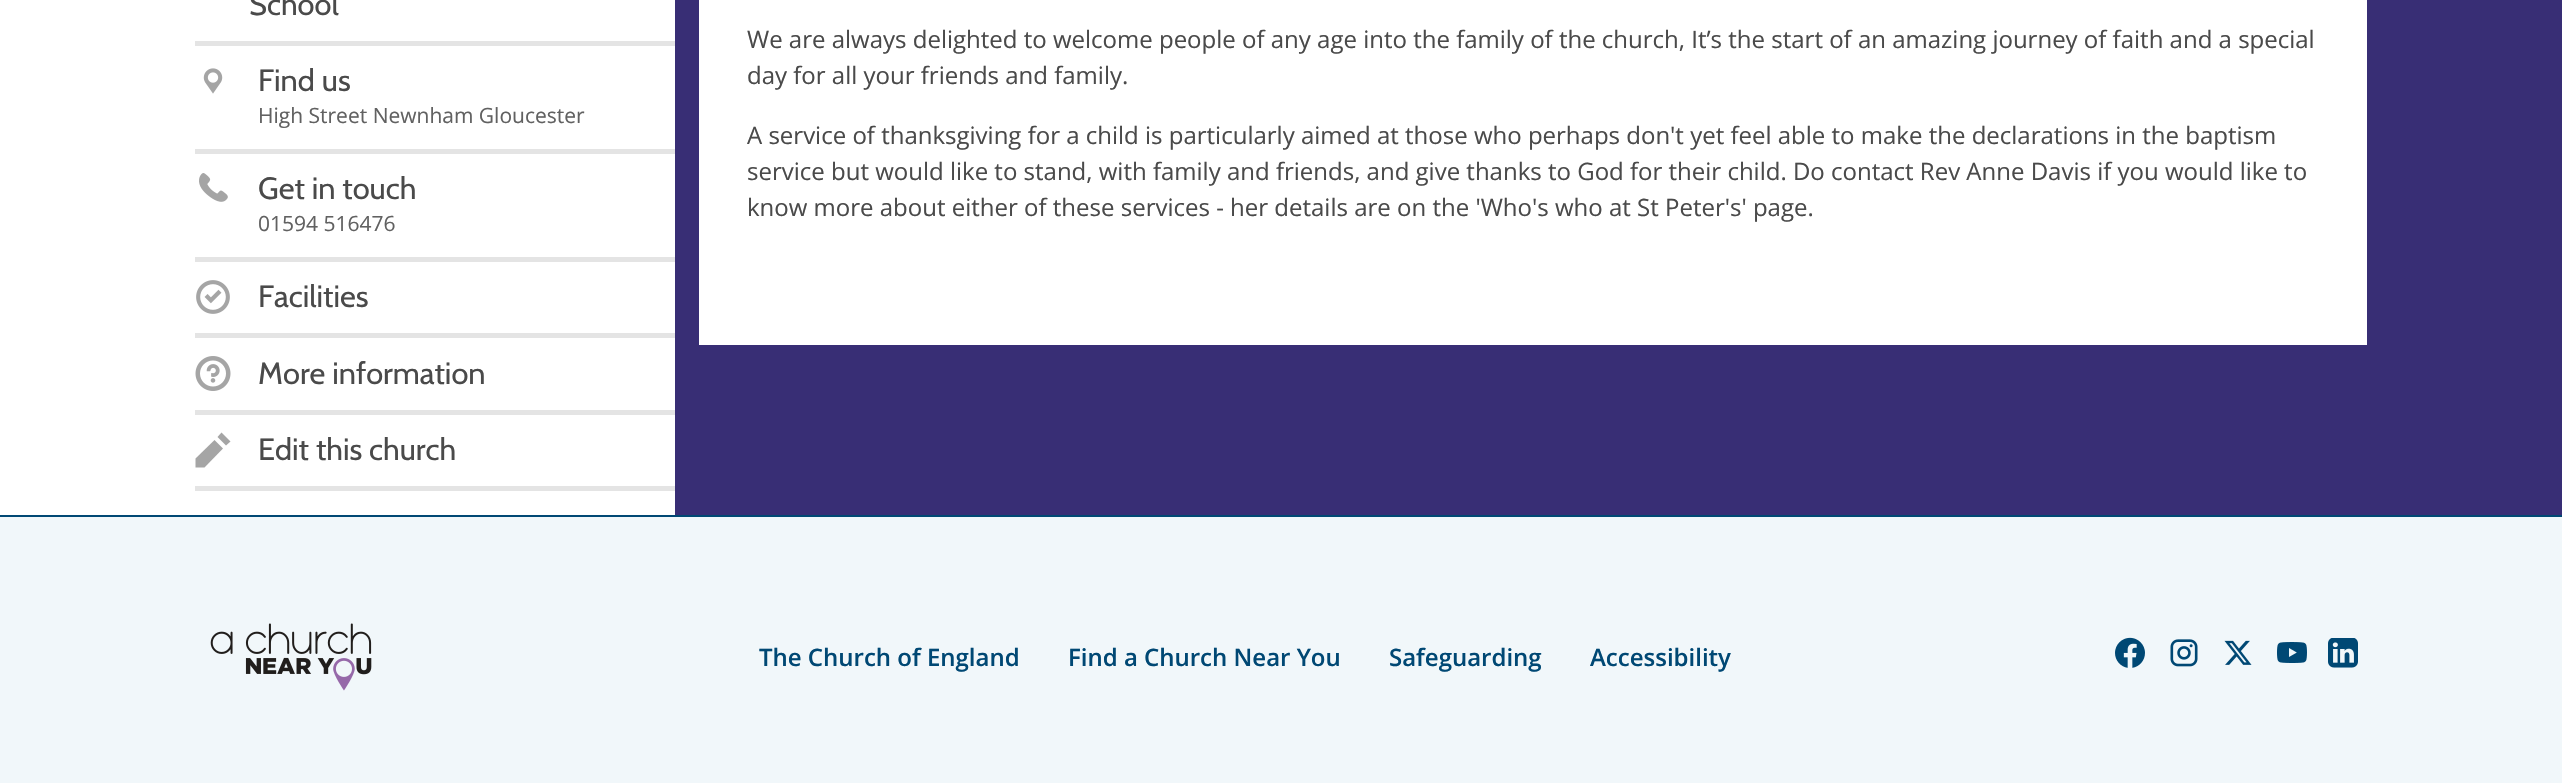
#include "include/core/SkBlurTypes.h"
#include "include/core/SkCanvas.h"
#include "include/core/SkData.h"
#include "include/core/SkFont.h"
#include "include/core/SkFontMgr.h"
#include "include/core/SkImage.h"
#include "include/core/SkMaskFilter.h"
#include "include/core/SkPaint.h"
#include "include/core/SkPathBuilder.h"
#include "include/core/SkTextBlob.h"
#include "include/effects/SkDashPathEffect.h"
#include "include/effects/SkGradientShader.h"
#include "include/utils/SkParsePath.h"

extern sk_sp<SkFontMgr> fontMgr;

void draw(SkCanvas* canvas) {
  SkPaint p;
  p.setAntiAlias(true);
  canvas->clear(SkColorSetRGB(241, 247, 250));
  p.setColor(SkColorSetRGB(56, 46, 117));
  canvas->drawRect(SkRect::MakeLTRB(675, 0, 2562, 515), p);
  p.setColor(SK_ColorWHITE);
  canvas->drawRect(SkRect::MakeLTRB(0, 0, 675, 515), p);
  p.setColor(SkColorSetRGB(228, 228, 228));
  canvas->drawRect(SkRect::MakeLTRB(195, 41, 675, 46), p);
  canvas->drawImageRect(SkImages::DeferredFromEncodedData(SkData::MakeFromFileName("images/1.png")), SkRect::MakeLTRB(203, 68, 223, 94), SkSamplingOptions());
  canvas->drawRect(SkRect::MakeLTRB(195, 149, 675, 154), p);
  canvas->drawImageRect(SkImages::DeferredFromEncodedData(SkData::MakeFromFileName("images/2.png")), SkRect::MakeLTRB(199, 173, 228, 202), SkSamplingOptions());
  canvas->drawRect(SkRect::MakeLTRB(195, 257, 675, 262), p);
  canvas->drawImageRect(SkImages::DeferredFromEncodedData(SkData::MakeFromFileName("images/3.png")), SkRect::MakeLTRB(196, 280, 230, 314), SkSamplingOptions());
  canvas->drawRect(SkRect::MakeLTRB(195, 333, 675, 338), p);
  canvas->drawImageRect(SkImages::DeferredFromEncodedData(SkData::MakeFromFileName("images/4.png")), SkRect::MakeLTRB(195, 356, 231, 391), SkSamplingOptions());
  canvas->drawRect(SkRect::MakeLTRB(195, 410, 675, 415), p);
  canvas->drawRect(SkRect::MakeLTRB(195, 486, 675, 491), p);
  p.setColor(SkColorSetRGB(165, 165, 165));
  canvas->drawPath(SkPathBuilder().moveTo(195.5f, 458.5f).lineTo(195.5f, 467.5f).lineTo(204.5f, 467.5f).lineTo(223, 448.5f).lineTo(214.5f, 440).close().detach(), p);
  canvas->drawPath(SkPathBuilder().moveTo(217.5f, 437).lineTo(221.5f, 432.5f).lineTo(230.5f, 441.5f).lineTo(226, 445.5f).close().detach(), p);
  p.setColor(SK_ColorWHITE);
  canvas->drawRect(SkRect::MakeLTRB(699, 0, 2367, 345), p);
  p.setColor(SkColorSetRGB(0, 72, 116));
  canvas->drawRect(SkRect::MakeLTRB(0, 515, 2562, 517), p);
  canvas->drawImageRect(SkImages::DeferredFromEncodedData(SkData::MakeFromFileName("images/5.png")), SkRect::MakeLTRB(210, 623, 372, 691), SkSamplingOptions());
  canvas->drawImageRect(SkImages::DeferredFromEncodedData(SkData::MakeFromFileName("images/6.png")), SkRect::MakeLTRB(2115, 637, 2145, 668), SkSamplingOptions());
  canvas->drawImageRect(SkImages::DeferredFromEncodedData(SkData::MakeFromFileName("images/7.png")), SkRect::MakeLTRB(2170, 639, 2198, 667), SkSamplingOptions());
  canvas->drawImageRect(SkImages::DeferredFromEncodedData(SkData::MakeFromFileName("images/8.png")), SkRect::MakeLTRB(2224, 640, 2252, 665), SkSamplingOptions());
  canvas->drawImageRect(SkImages::DeferredFromEncodedData(SkData::MakeFromFileName("images/9.png")), SkRect::MakeLTRB(2277, 642, 2307, 663), SkSamplingOptions());
  canvas->drawImageRect(SkImages::DeferredFromEncodedData(SkData::MakeFromFileName("images/10.png")), SkRect::MakeLTRB(2328, 638, 2358, 668), SkSamplingOptions());
  SkFont font1(fontMgr->matchFamilyStyle("Cabin", SkFontStyle::Normal()), 30.75f);
  font1.setSubpixel(true);
  p.setColor(SkColorSetRGB(74, 74, 74));
  canvas->drawString("School", 249, 15, font1, p);
  canvas->drawString("Find us", 258, 91, font1, p);
  SkFont font2(fontMgr->matchFamilyStyle("Open Sans", SkFontStyle::Normal()), 21);
  font2.setSubpixel(true);
  p.setColor(SkColorSetRGB(97, 97, 97));
  canvas->drawString("High Street Newnham Gloucester", 258, 123, font2, p);
  p.setColor(SkColorSetRGB(74, 74, 74));
  canvas->drawString("Get in touch", 258, 199, font1, p);
  p.setColor(SkColorSetRGB(97, 97, 97));
  canvas->drawString("01594 516476", 258, 231, font2, p);
  p.setColor(SkColorSetRGB(74, 74, 74));
  canvas->drawString("Facilities", 258, 307, font1, p);
  canvas->drawString("More information", 258, 384, font1, p);
  canvas->drawString("Edit this church", 258, 460, font1, p);
  SkFont font3(fontMgr->matchFamilyStyle("Open Sans", SkFontStyle::Normal()), 24);
  font3.setSubpixel(true);
  canvas->drawString("We are always delighted to welcome people of any age into the family of the church, It’s the start of an amazing journey of faith and a special", 747, 48, font3, p);
  canvas->drawString("day for all your friends and family.", 747, 84, font3, p);
  canvas->drawString("A service of thanksgiving for a child is particularly aimed at those who perhaps don't yet feel able to make the declarations in the baptism", 747, 144, font3, p);
  canvas->drawString("service but would like to stand, with family and friends, and give thanks to God for their child. Do contact Rev Anne Davis if you would like to", 747, 180, font3, p);
  canvas->drawString("know more about either of these services - her details are on the 'Who's who at St Peter's' page.", 747, 216, font3, p);
  SkFont font4(fontMgr->matchFamilyStyle("Open Sans", SkFontStyle(600, SkFontStyle::kNormal_Width, SkFontStyle::kUpright_Slant)), 24);
  font4.setSubpixel(true);
  p.setColor(SkColorSetRGB(0, 72, 116));
  canvas->drawString("The Church of England", 759, 666, font4, p);
  canvas->drawString("Find a Church Near You", 1068, 666, font4, p);
  canvas->drawString("Safeguarding", 1389, 666, font4, p);
  canvas->drawString("Accessibility", 1590, 666, font4, p);
}
